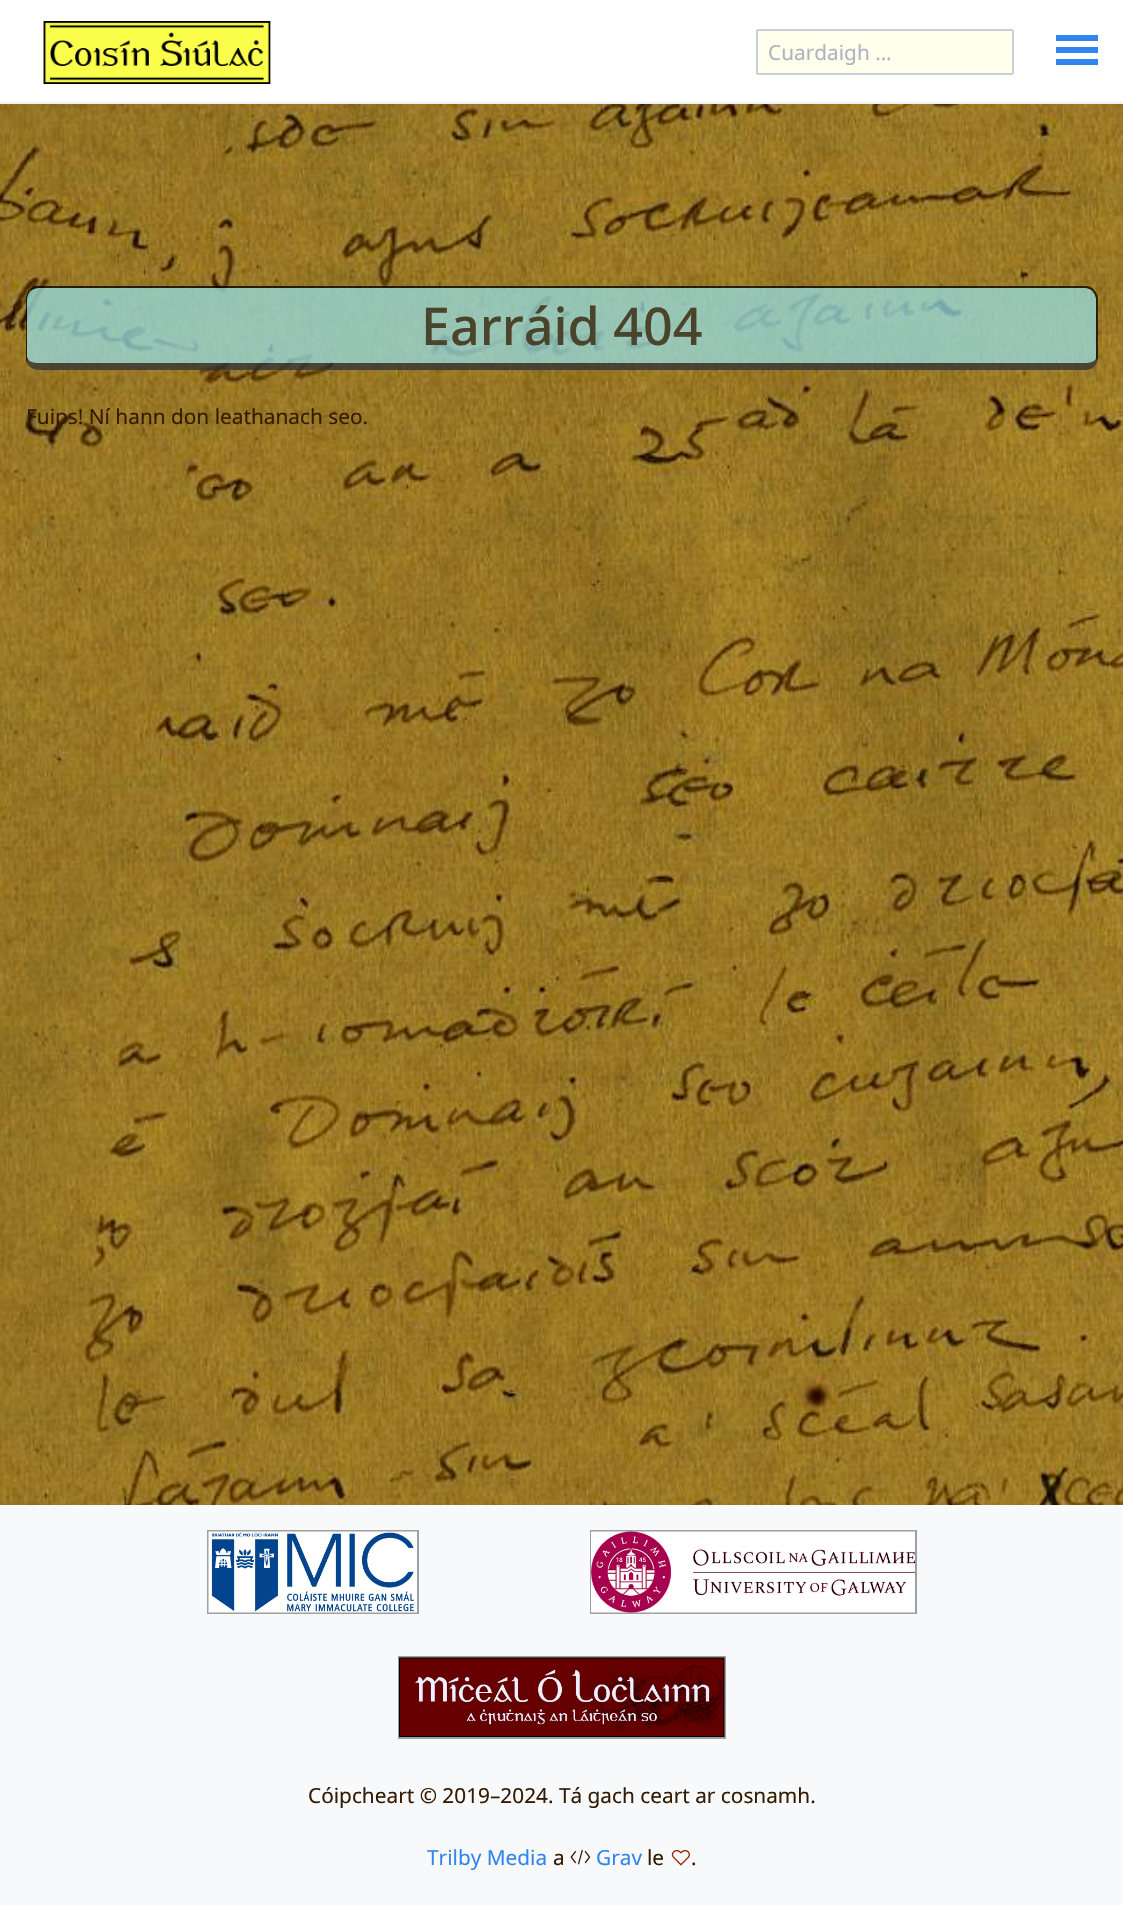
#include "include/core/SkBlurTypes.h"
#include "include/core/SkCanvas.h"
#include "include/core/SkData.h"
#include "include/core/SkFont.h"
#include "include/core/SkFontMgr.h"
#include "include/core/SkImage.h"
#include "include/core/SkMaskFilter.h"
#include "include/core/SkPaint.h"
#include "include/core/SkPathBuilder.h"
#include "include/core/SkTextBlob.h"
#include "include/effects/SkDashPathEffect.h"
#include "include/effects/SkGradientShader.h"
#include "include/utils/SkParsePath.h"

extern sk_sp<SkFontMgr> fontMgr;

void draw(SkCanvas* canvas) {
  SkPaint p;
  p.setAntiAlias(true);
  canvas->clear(SK_ColorWHITE);
  canvas->drawImageRect(SkImages::DeferredFromEncodedData(SkData::MakeFromFileName("images/1.png")), SkRect::MakeLTRB(0, 104, 1123, 1505), SkSamplingOptions());
  p.setColor(SkColorSetRGB(238, 240, 243));
  canvas->drawRect(SkRect::MakeLTRB(0, 102, 1123, 104), p);
  canvas->drawImageRect(SkImages::DeferredFromEncodedData(SkData::MakeFromFileName("images/2.png")), SkRect::MakeLTRB(43, 21, 271, 84), SkSamplingOptions());
  p.setColor(SkColorSetRGB(255, 255, 236));
  canvas->drawRoundRect(SkRect::MakeLTRB(757, 30, 1013, 74), 1, 1, p);
  p.setStyle(SkPaint::kStroke_Style);
  p.setStrokeWidth(2);
  p.setColor(SkColorSetRGB(202, 206, 215));
  canvas->drawRoundRect(SkRect::MakeLTRB(757, 30, 1013, 74), 1, 1, p);
  p.setStyle(SkPaint::kFill_Style);
  p.setColor(SkColorSetRGB(48, 133, 238));
  canvas->drawRect(SkRect::MakeLTRB(1056, 35, 1098, 41), p);
  canvas->drawRect(SkRect::MakeLTRB(1056, 47, 1098, 53), p);
  canvas->drawRect(SkRect::MakeLTRB(1056, 59, 1098, 65), p);
  p.setColor(SkColorSetARGB(191, 149, 222, 227));
  canvas->drawPath(SkPathBuilder().moveTo(39, 288).lineTo(1085, 288).cubicTo(1091, 288, 1096, 293, 1096, 300).lineTo(1096, 357).cubicTo(1096, 361, 1091, 363, 1085, 363).lineTo(39, 363).cubicTo(32, 363, 27, 361, 27, 357).lineTo(27, 300).cubicTo(27, 293, 32, 288, 39, 288).close().detach(), p);
  p.setColor(SkColorSetARGB(191, 0, 0, 0));
  canvas->drawPath(SkPathBuilder().moveTo(39, 288).cubicTo(36, 288, 32, 289, 30, 291).lineTo(29, 290).cubicTo(31, 288, 33, 287, 35, 286).lineTo(1088, 286).cubicTo(1091, 287, 1093, 288, 1094, 290).lineTo(1093, 292).cubicTo(1091, 289, 1088, 288, 1085, 288).close().detach(), p);
  canvas->drawPath(SkPathBuilder().moveTo(1098, 357).lineTo(1098, 300).cubicTo(1098, 296, 1097, 293, 1094, 290).lineTo(1093, 292).cubicTo(1094, 293, 1095, 295, 1096, 298).lineTo(1096, 359).lineTo(1097, 363).cubicTo(1097, 361, 1098, 359, 1098, 357).close().detach(), p);
  p.setColor(SkColorSetARGB(191, 47, 49, 58));
  canvas->drawPath(SkPathBuilder().moveTo(1097, 363).cubicTo(1094, 368, 1090, 370, 1085, 370).lineTo(39, 370).cubicTo(33, 370, 29, 367, 27, 363).lineTo(28, 359).cubicTo(29, 362, 34, 363, 39, 363).lineTo(1085, 363).cubicTo(1090, 363, 1094, 362, 1096, 359).close().detach(), p);
  p.setColor(SkColorSetARGB(191, 0, 0, 0));
  canvas->drawPath(SkPathBuilder().moveTo(27, 363).cubicTo(26, 361, 26, 359, 26, 357).lineTo(26, 300).cubicTo(26, 296, 27, 293, 29, 290).lineTo(30, 291).cubicTo(28, 294, 27, 296, 27, 300).lineTo(27, 357).lineTo(28, 359).close().detach(), p);
  p.setColor(SkColorSetRGB(248, 249, 250));
  canvas->drawRect(SkRect::MakeLTRB(0, 1505, 1123, 1905), p);
  p.setStyle(SkPaint::kStroke_Style);
  p.setColor(SkColorSetRGB(159, 159, 159));
  canvas->drawRect(SkRect::MakeLTRB(208, 1531, 418, 1613), p);
  canvas->drawImageRect(SkImages::DeferredFromEncodedData(SkData::MakeFromFileName("images/3.png")), SkRect::MakeLTRB(208, 1531, 417, 1613), SkSamplingOptions());
  canvas->drawRect(SkRect::MakeLTRB(591, 1531, 916, 1613), p);
  canvas->drawImageRect(SkImages::DeferredFromEncodedData(SkData::MakeFromFileName("images/4.png")), SkRect::MakeLTRB(591, 1531, 915, 1613), SkSamplingOptions());
  canvas->drawRect(SkRect::MakeLTRB(399, 1657, 725, 1738), p);
  canvas->drawImageRect(SkImages::DeferredFromEncodedData(SkData::MakeFromFileName("images/5.png")), SkRect::MakeLTRB(399, 1657, 725, 1737), SkSamplingOptions());
  canvas->drawImageRect(SkImages::DeferredFromEncodedData(SkData::MakeFromFileName("images/6.png")), SkRect::MakeLTRB(570, 1849, 591, 1865), SkSamplingOptions());
  canvas->drawImageRect(SkImages::DeferredFromEncodedData(SkData::MakeFromFileName("images/7.png")), SkRect::MakeLTRB(671, 1849, 690, 1866), SkSamplingOptions());
  SkFont font1(fontMgr->matchFamilyStyle("Noto Sans", SkFontStyle::Normal()), 20.8f);
  font1.setSubpixel(true);
  p.setStyle(SkPaint::kFill_Style);
  p.setColor(SkColorSetRGB(172, 179, 194));
  canvas->drawString("Cuardaigh …", 768, 60, font1, p);
  SkFont font2(fontMgr->matchFamilyStyle("Noto Sans", SkFontStyle(500, SkFontStyle::kNormal_Width, SkFontStyle::kUpright_Slant)), 52);
  font2.setSubpixel(true);
  p.setColor(SkColorSetRGB(75, 68, 45));
  canvas->drawString("Earráid 404", 421, 345, font2, p);
  p.setColor(SkColorSetRGB(51, 26, 0));
  canvas->drawString("Fuips! Ní hann don leathanach seo.", 26, 424, font1, p);
  canvas->drawString("Cóipcheart © 2019–2024. Tá gach ceart ar cosnamh.", 308, 1803, font1, p);
  p.setColor(SkColorSetRGB(48, 133, 238));
  canvas->drawString("Trilby Media", 427, 1865, font1, p);
  p.setColor(SkColorSetRGB(51, 26, 0));
  canvas->drawString("a", 553, 1865, font1, p);
  p.setColor(SkColorSetRGB(48, 133, 238));
  canvas->drawString("Grav", 596, 1865, font1, p);
  p.setColor(SkColorSetRGB(51, 26, 0));
  canvas->drawString("le", 647, 1865, font1, p);
  canvas->drawString(".", 691, 1865, font1, p);
}
